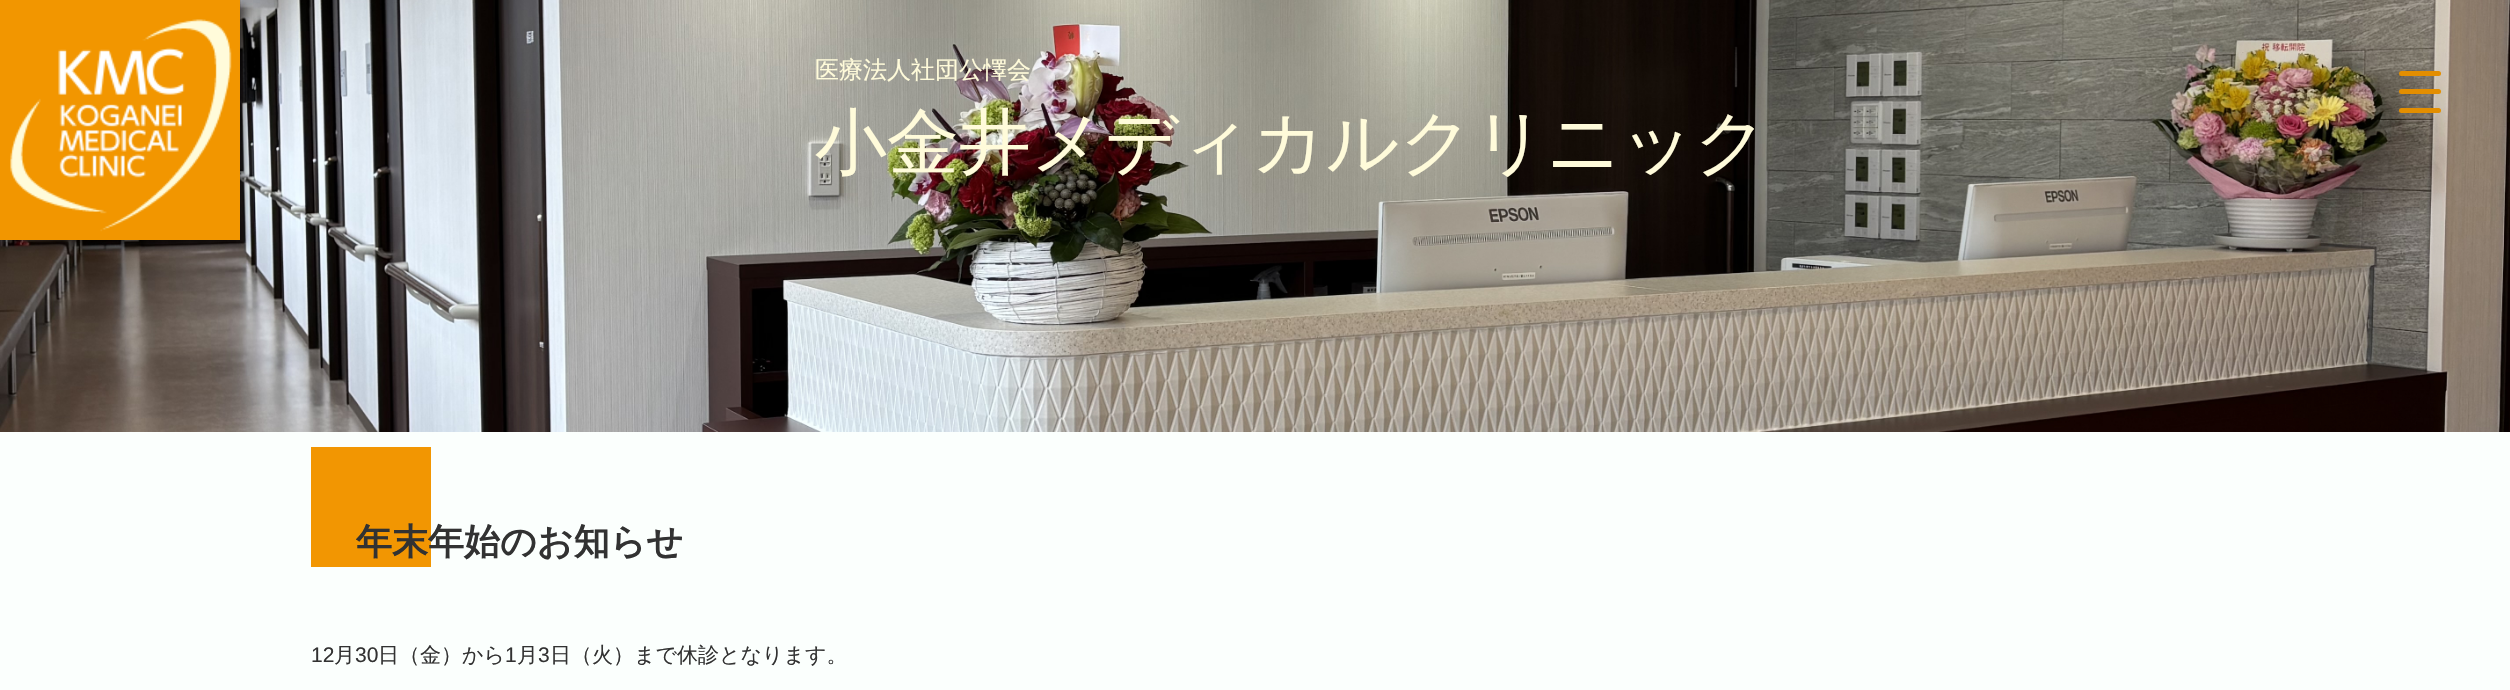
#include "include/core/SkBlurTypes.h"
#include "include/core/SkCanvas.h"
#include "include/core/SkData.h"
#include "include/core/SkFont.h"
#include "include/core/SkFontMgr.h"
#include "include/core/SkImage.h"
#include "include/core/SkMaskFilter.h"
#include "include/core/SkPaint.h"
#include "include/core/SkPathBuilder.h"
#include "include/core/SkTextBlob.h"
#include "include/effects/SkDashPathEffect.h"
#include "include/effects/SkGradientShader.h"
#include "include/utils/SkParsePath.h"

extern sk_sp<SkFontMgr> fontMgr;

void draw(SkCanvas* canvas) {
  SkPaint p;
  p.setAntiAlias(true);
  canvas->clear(SkColorSetRGB(251, 255, 253));
  canvas->drawImageRect(SkImages::DeferredFromEncodedData(SkData::MakeFromFileName("images/1.png")), SkRect::MakeLTRB(0, 0, 2510, 432), SkSamplingOptions());
  canvas->drawImageRect(SkImages::DeferredFromEncodedData(SkData::MakeFromFileName("images/2.png")), SkRect::MakeLTRB(0, 0, 252, 251), SkSamplingOptions());
  p.setColor(SkColorSetRGB(227, 142, 0));
  canvas->drawRoundRect(SkRect::MakeLTRB(2399, 71, 2441, 76), 2.5f, 2.5f, p);
  canvas->drawRoundRect(SkRect::MakeLTRB(2399, 89, 2441, 94), 2.5f, 2.5f, p);
  canvas->drawRoundRect(SkRect::MakeLTRB(2399, 108, 2441, 113), 2.5f, 2.5f, p);
  p.setColor(SkColorSetRGB(242, 150, 2));
  canvas->drawRect(SkRect::MakeLTRB(311, 447, 431, 567), p);
  SkFont font1(fontMgr->matchFamilyStyle("WenQuanYi Zen Hei", SkFontStyle(500, SkFontStyle::kNormal_Width, SkFontStyle::kUpright_Slant)), 24);
  font1.setSubpixel(true);
  p.setColor(SkColorSetRGB(255, 251, 218));
  canvas->drawString("医療法人社団公懌会", 815, 78, font1, p);
  SkFont font2(fontMgr->matchFamilyStyle("WenQuanYi Zen Hei", SkFontStyle(500, SkFontStyle::kNormal_Width, SkFontStyle::kUpright_Slant)), 72);
  font2.setSubpixel(true);
  canvas->drawString("小金井メディカルクリニック", 815, 167, font2, p);
  SkFont font3(fontMgr->matchFamilyStyle("WenQuanYi Zen Hei", SkFontStyle::Bold()), 36);
  font3.setSubpixel(true);
  p.setColor(SkColorSetRGB(50, 50, 50));
  canvas->drawString("年末年始のお知らせ", 356, 554, font3, p);
  SkFont font4(fontMgr->matchFamilyStyle("Liberation Sans", SkFontStyle::Normal()), 21);
  font4.setSubpixel(true);
  canvas->drawString("12", 311, 662, font4, p);
  SkFont font5(fontMgr->matchFamilyStyle("WenQuanYi Zen Hei", SkFontStyle(500, SkFontStyle::kNormal_Width, SkFontStyle::kUpright_Slant)), 21);
  font5.setSubpixel(true);
  canvas->drawString("月", 334, 662, font5, p);
  canvas->drawString("30", 355, 662, font4, p);
  canvas->drawString("日（金）から", 378, 662, font5, p);
  canvas->drawString("1", 505, 662, font4, p);
  canvas->drawString("月", 517, 662, font5, p);
  canvas->drawString("3", 538, 662, font4, p);
  canvas->drawString("日（火）まで休診となります。", 550, 662, font5, p);
}
